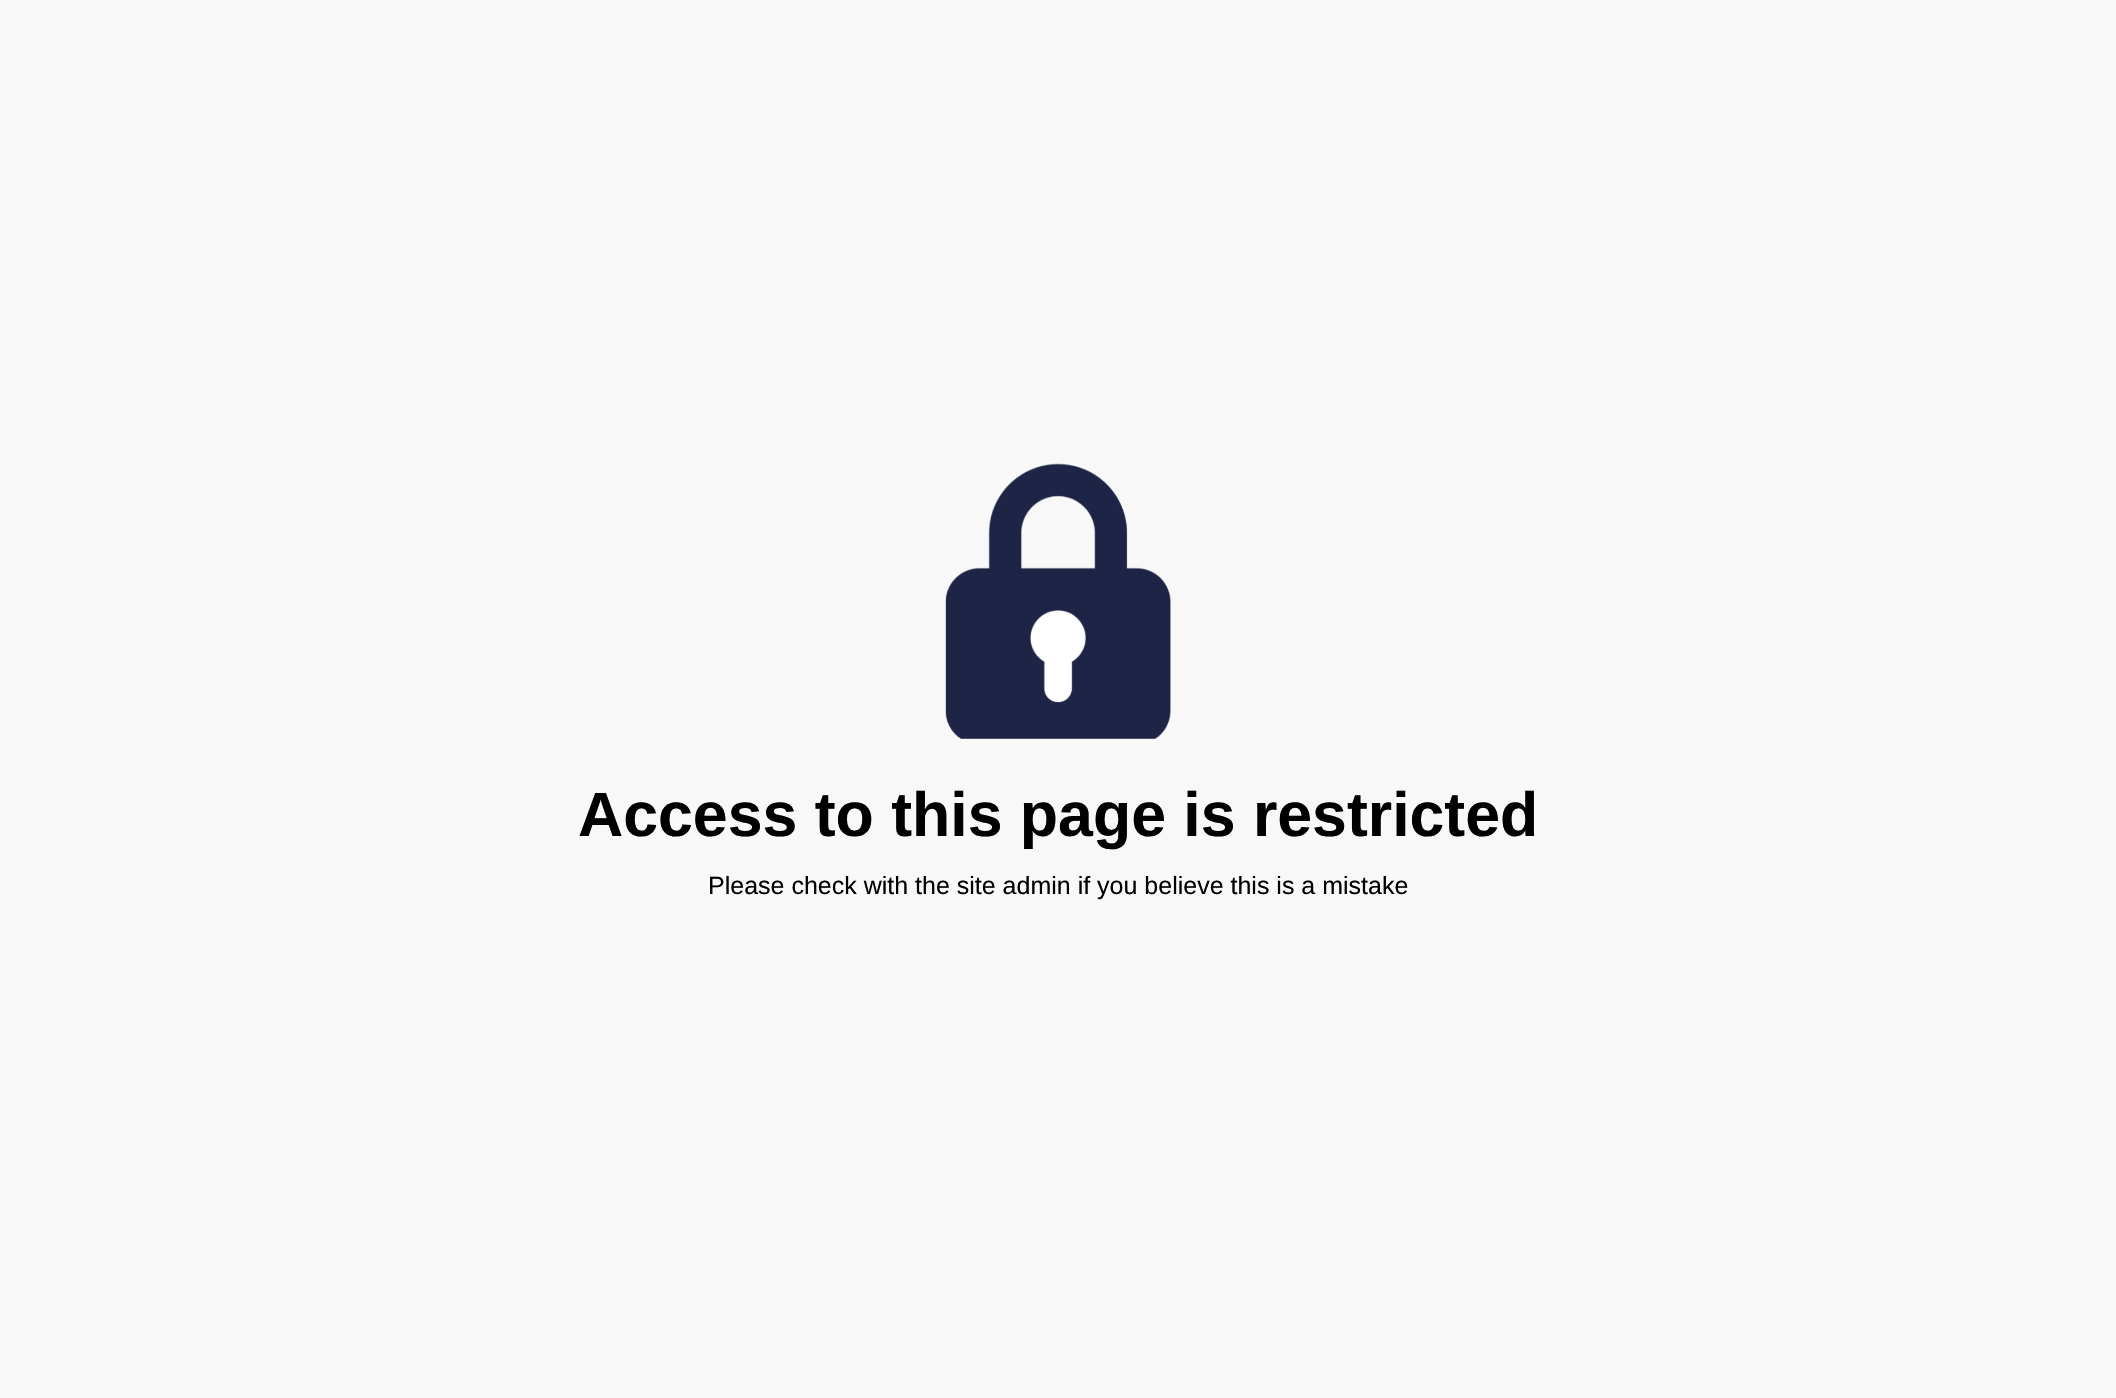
#include "include/core/SkBlurTypes.h"
#include "include/core/SkCanvas.h"
#include "include/core/SkData.h"
#include "include/core/SkFont.h"
#include "include/core/SkFontMgr.h"
#include "include/core/SkImage.h"
#include "include/core/SkMaskFilter.h"
#include "include/core/SkPaint.h"
#include "include/core/SkPathBuilder.h"
#include "include/core/SkTextBlob.h"
#include "include/effects/SkDashPathEffect.h"
#include "include/effects/SkGradientShader.h"
#include "include/utils/SkParsePath.h"

extern sk_sp<SkFontMgr> fontMgr;

void draw(SkCanvas* canvas) {
  SkPaint p;
  p.setAntiAlias(true);
  canvas->clear(SkColorSetRGB(248, 248, 248));
  canvas->drawImageRect(SkImages::DeferredFromEncodedData(SkData::MakeFromFileName("images/1.png")), SkRect::MakeLTRB(945, 463, 1171, 739), SkSamplingOptions());
  SkFont font1(fontMgr->matchFamilyStyle("Liberation Sans", SkFontStyle::Bold()), 62.6f);
  font1.setSubpixel(true);
  p.setColor(SK_ColorBLACK);
  canvas->drawString("Access to this page is restricted", 578, 836, font1, p);
  SkFont font2(fontMgr->matchFamilyStyle("Liberation Sans", SkFontStyle::Normal()), 25);
  font2.setSubpixel(true);
  canvas->drawString("Please check with the site admin if you believe this is a mistake", 708, 894, font2, p);
}
